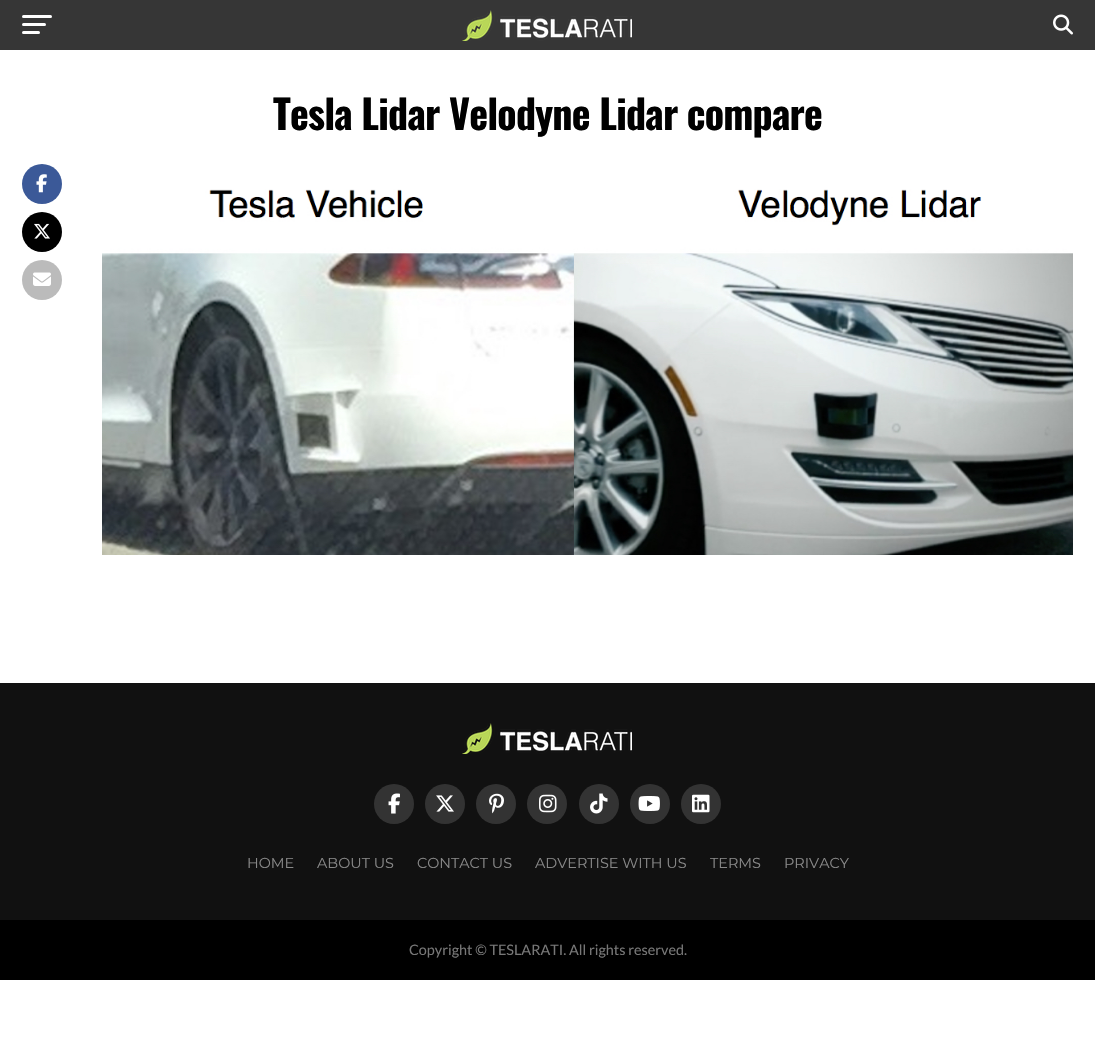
#include "include/core/SkBlurTypes.h"
#include "include/core/SkCanvas.h"
#include "include/core/SkData.h"
#include "include/core/SkFont.h"
#include "include/core/SkFontMgr.h"
#include "include/core/SkImage.h"
#include "include/core/SkMaskFilter.h"
#include "include/core/SkPaint.h"
#include "include/core/SkPathBuilder.h"
#include "include/core/SkTextBlob.h"
#include "include/effects/SkDashPathEffect.h"
#include "include/effects/SkGradientShader.h"
#include "include/utils/SkParsePath.h"

extern sk_sp<SkFontMgr> fontMgr;

void draw(SkCanvas* canvas) {
  SkPaint p;
  p.setAntiAlias(true);
  auto spacedText = [&](const char* s, float x, float y, const SkFont& font, const SkPaint& ink, float letter, float word) {
    std::vector<SkGlyphID> glyphs(font.countText(s, strlen(s), SkTextEncoding::kUTF8));
    std::vector<float> xs(glyphs.size());
    font.textToGlyphs(s, strlen(s), SkTextEncoding::kUTF8, glyphs);
    font.getXPos(glyphs, xs, x);
    float extra = 0;
    for (size_t i = 0; i < glyphs.size(); i++) {
      xs[i] += extra;
      extra += letter + word * (glyphs[i] == font.unicharToGlyph(' '));
    }
    canvas->drawTextBlob(SkTextBlob::MakeFromPosHGlyphs(glyphs, xs, y, font), 0, 0, ink);
  };
  canvas->clear(SK_ColorWHITE);
  p.setColor(SkColorSetRGB(54, 54, 54));
  canvas->drawRect(SkRect::MakeLTRB(0, 0, 1095, 50), p);
  p.setColor(SK_ColorWHITE);
  canvas->drawRoundRect(SkRect::MakeLTRB(22, 15, 52, 18), 1.5f, 1.5f, p);
  canvas->drawRoundRect(SkRect::MakeLTRB(22, 23, 46, 26), 1.5f, 1.5f, p);
  canvas->drawRoundRect(SkRect::MakeLTRB(22, 31, 40, 34), 1.5f, 1.5f, p);
  canvas->drawImageRect(SkImages::DeferredFromEncodedData(SkData::MakeFromFileName("images/1.png")), SkRect::MakeLTRB(462, 10, 632, 41), SkSamplingOptions());
  canvas->drawImageRect(SkImages::DeferredFromEncodedData(SkData::MakeFromFileName("images/2.png")), SkRect::MakeLTRB(1053, 14, 1073, 35), SkSamplingOptions());
  p.setColor(SkColorSetRGB(59, 89, 152));
  canvas->drawCircle(42, 184, 20, p);
  canvas->drawImageRect(SkImages::DeferredFromEncodedData(SkData::MakeFromFileName("images/3.png")), SkRect::MakeLTRB(36, 174, 47, 193), SkSamplingOptions());
  p.setColor(SK_ColorBLACK);
  canvas->drawCircle(42, 232, 20, p);
  canvas->drawImageRect(SkImages::DeferredFromEncodedData(SkData::MakeFromFileName("images/4.png")), SkRect::MakeLTRB(34, 223, 50, 239), SkSamplingOptions());
  p.setColor(SkColorSetRGB(187, 187, 187));
  canvas->drawCircle(42, 280, 20, p);
  canvas->drawImageRect(SkImages::DeferredFromEncodedData(SkData::MakeFromFileName("images/5.png")), SkRect::MakeLTRB(33, 272, 51, 286), SkSamplingOptions());
  canvas->drawImageRect(SkImages::DeferredFromEncodedData(SkData::MakeFromFileName("images/6.png")), SkRect::MakeLTRB(102, 189, 1073, 555), SkSamplingOptions());
  p.setColor(SkColorSetRGB(17, 17, 17));
  canvas->drawRect(SkRect::MakeLTRB(0, 683, 1095, 920), p);
  canvas->drawImageRect(SkImages::DeferredFromEncodedData(SkData::MakeFromFileName("images/7.png")), SkRect::MakeLTRB(462, 723, 632, 754), SkSamplingOptions());
  p.setColor(SkColorSetRGB(51, 51, 51));
  canvas->drawCircle(394, 804, 20, p);
  canvas->drawImageRect(SkImages::DeferredFromEncodedData(SkData::MakeFromFileName("images/8.png")), SkRect::MakeLTRB(388, 793, 400, 814), SkSamplingOptions());
  canvas->drawCircle(445, 804, 20, p);
  canvas->drawImageRect(SkImages::DeferredFromEncodedData(SkData::MakeFromFileName("images/9.png")), SkRect::MakeLTRB(436, 795, 454, 812), SkSamplingOptions());
  canvas->drawCircle(496, 804, 20, p);
  canvas->drawImageRect(SkImages::DeferredFromEncodedData(SkData::MakeFromFileName("images/10.png")), SkRect::MakeLTRB(489, 793, 504, 814), SkSamplingOptions());
  canvas->drawCircle(547, 804, 20, p);
  canvas->drawImageRect(SkImages::DeferredFromEncodedData(SkData::MakeFromFileName("images/11.png")), SkRect::MakeLTRB(539, 794, 557, 813), SkSamplingOptions());
  canvas->drawCircle(599, 804, 20, p);
  canvas->drawImageRect(SkImages::DeferredFromEncodedData(SkData::MakeFromFileName("images/12.png")), SkRect::MakeLTRB(590, 793, 608, 814), SkSamplingOptions());
  canvas->drawCircle(650, 804, 20, p);
  canvas->drawImageRect(SkImages::DeferredFromEncodedData(SkData::MakeFromFileName("images/13.png")), SkRect::MakeLTRB(638, 796, 660, 811), SkSamplingOptions());
  canvas->drawCircle(701, 804, 20, p);
  canvas->drawImageRect(SkImages::DeferredFromEncodedData(SkData::MakeFromFileName("images/14.png")), SkRect::MakeLTRB(692, 794, 710, 813), SkSamplingOptions());
  p.setColor(SK_ColorBLACK);
  canvas->drawRect(SkRect::MakeLTRB(0, 920, 1095, 980), p);
  SkFont font1(fontMgr->matchFamilyStyle("Oswald", SkFontStyle::Bold()), 40);
  font1.setSubpixel(true);
  spacedText("Tesla Lidar Velodyne Lidar compare", 273, 130, font1, p, -0.8f, 0);
  SkFont font2(fontMgr->matchFamilyStyle("Montserrat", SkFontStyle::Normal()), 14.4f);
  font2.setSubpixel(true);
  p.setColor(SkColorSetRGB(136, 136, 136));
  canvas->drawString("HOME", 247, 868, font2, p);
  canvas->drawString("ABOUT US", 317, 868, font2, p);
  canvas->drawString("CONTACT US", 417, 868, font2, p);
  canvas->drawString("ADVERTISE WITH US", 535, 868, font2, p);
  canvas->drawString("TERMS", 710, 868, font2, p);
  canvas->drawString("PRIVACY", 784, 868, font2, p);
  SkFont font3(fontMgr->matchFamilyStyle("Lato", SkFontStyle::Normal()), 14.4f);
  font3.setSubpixel(true);
  p.setColor(SkColorSetRGB(119, 119, 119));
  canvas->drawString("Copyright © TESLARATI. All rights reserved.", 409, 955, font3, p);
}
